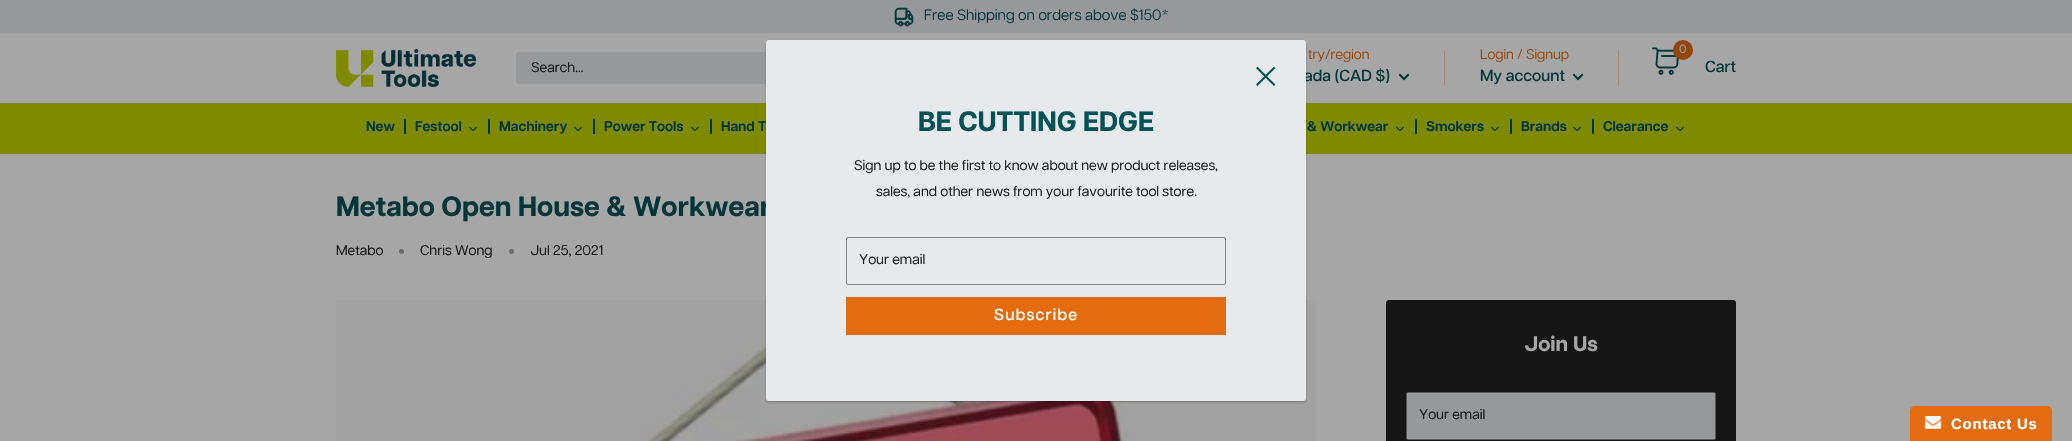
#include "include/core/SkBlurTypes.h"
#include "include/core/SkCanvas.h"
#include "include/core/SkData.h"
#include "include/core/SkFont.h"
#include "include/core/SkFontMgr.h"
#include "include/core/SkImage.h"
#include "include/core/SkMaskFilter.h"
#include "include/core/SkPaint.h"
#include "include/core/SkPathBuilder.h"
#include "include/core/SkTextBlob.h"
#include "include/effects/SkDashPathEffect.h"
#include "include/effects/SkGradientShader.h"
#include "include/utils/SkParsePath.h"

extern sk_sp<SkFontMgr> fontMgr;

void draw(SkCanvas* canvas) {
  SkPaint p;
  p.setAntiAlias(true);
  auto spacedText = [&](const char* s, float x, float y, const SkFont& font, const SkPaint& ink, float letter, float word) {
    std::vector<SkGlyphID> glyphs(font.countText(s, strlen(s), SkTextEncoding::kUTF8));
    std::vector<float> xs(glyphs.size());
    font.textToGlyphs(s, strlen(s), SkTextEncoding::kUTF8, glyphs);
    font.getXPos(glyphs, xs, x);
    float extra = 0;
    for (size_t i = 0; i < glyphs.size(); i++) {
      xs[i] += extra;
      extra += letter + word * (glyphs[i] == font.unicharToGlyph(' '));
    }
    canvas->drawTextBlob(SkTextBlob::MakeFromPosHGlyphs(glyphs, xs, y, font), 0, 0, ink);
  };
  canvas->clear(SkColorSetRGB(166, 166, 166));
  p.setColor(SkColorSetRGB(150, 152, 154));
  canvas->drawRect(SkRect::MakeLTRB(0, 0, 2072, 33), p);
  canvas->drawImageRect(SkImages::DeferredFromEncodedData(SkData::MakeFromFileName("images/1.png")), SkRect::MakeLTRB(894, 7, 914, 27), SkSamplingOptions());
  canvas->drawImageRect(SkImages::DeferredFromEncodedData(SkData::MakeFromFileName("images/2.png")), SkRect::MakeLTRB(336, 49, 476, 87), SkSamplingOptions());
  canvas->drawRoundRect(SkRect::MakeLTRB(516, 52, 1235, 84), 3, 3, p);
  p.setStyle(SkPaint::kStroke_Style);
  p.setStrokeWidth(2);
  p.setStrokeCap(SkPaint::kSquare_Cap);
  p.setColor(SkColorSetRGB(0, 53, 57));
  canvas->drawPath(SkPathBuilder().moveTo(1408, 75).lineTo(1404, 79).lineTo(1400, 75).detach(), p);
  p.setStyle(SkPaint::kFill_Style);
  p.setColor(SkColorSetRGB(161, 137, 119));
  canvas->drawRect(SkRect::MakeLTRB(1444, 51, 1445, 85), p);
  canvas->drawRect(SkRect::MakeLTRB(1618, 51, 1619, 85), p);
  p.setStyle(SkPaint::kStroke_Style);
  p.setColor(SkColorSetRGB(0, 53, 57));
  canvas->drawPath(SkPathBuilder().moveTo(1582, 75).lineTo(1578, 79).lineTo(1574, 75).detach(), p);
  canvas->drawImageRect(SkImages::DeferredFromEncodedData(SkData::MakeFromFileName("images/3.png")), SkRect::MakeLTRB(1652, 47, 1679, 75), SkSamplingOptions());
  p.setStyle(SkPaint::kFill_Style);
  p.setColor(SkColorSetRGB(149, 70, 10));
  canvas->drawCircle(1683, 50, 10, p);
  p.setColor(SkColorSetRGB(126, 138, 0));
  canvas->drawRect(SkRect::MakeLTRB(0, 103, 2072, 154), p);
  p.setColor(SkColorSetRGB(0, 53, 57));
  canvas->drawRect(SkRect::MakeLTRB(404, 119, 406, 134), p);
  canvas->drawImageRect(SkImages::DeferredFromEncodedData(SkData::MakeFromFileName("images/4.png")), SkRect::MakeLTRB(469, 126, 477, 132), SkSamplingOptions());
  canvas->drawRect(SkRect::MakeLTRB(488, 119, 490, 134), p);
  canvas->drawImageRect(SkImages::DeferredFromEncodedData(SkData::MakeFromFileName("images/4.png")), SkRect::MakeLTRB(574, 126, 582, 132), SkSamplingOptions());
  canvas->drawRect(SkRect::MakeLTRB(593, 119, 595, 134), p);
  canvas->drawImageRect(SkImages::DeferredFromEncodedData(SkData::MakeFromFileName("images/4.png")), SkRect::MakeLTRB(691, 126, 699, 132), SkSamplingOptions());
  canvas->drawRect(SkRect::MakeLTRB(710, 119, 712, 134), p);
  canvas->drawImageRect(SkImages::DeferredFromEncodedData(SkData::MakeFromFileName("images/4.png")), SkRect::MakeLTRB(1396, 126, 1404, 132), SkSamplingOptions());
  canvas->drawRect(SkRect::MakeLTRB(1415, 119, 1417, 134), p);
  canvas->drawImageRect(SkImages::DeferredFromEncodedData(SkData::MakeFromFileName("images/4.png")), SkRect::MakeLTRB(1491, 126, 1499, 132), SkSamplingOptions());
  canvas->drawRect(SkRect::MakeLTRB(1510, 119, 1512, 134), p);
  canvas->drawImageRect(SkImages::DeferredFromEncodedData(SkData::MakeFromFileName("images/4.png")), SkRect::MakeLTRB(1573, 126, 1581, 132), SkSamplingOptions());
  canvas->drawRect(SkRect::MakeLTRB(1592, 119, 1594, 134), p);
  canvas->drawImageRect(SkImages::DeferredFromEncodedData(SkData::MakeFromFileName("images/4.png")), SkRect::MakeLTRB(1676, 126, 1684, 132), SkSamplingOptions());
  canvas->drawImageRect(SkImages::DeferredFromEncodedData(SkData::MakeFromFileName("images/6.png")), SkRect::MakeLTRB(336, 300, 1316, 441), SkSamplingOptions());
  p.setColor(SkColorSetARGB(77, 0, 0, 0));
  p.setMaskFilter(SkMaskFilter::MakeBlur(kNormal_SkBlurStyle, 1));
  canvas->drawRoundRect(SkRect::MakeLTRB(766, 41, 1306, 402), 3, 3, p);
  p.setMaskFilter(nullptr);
  p.setColor(SkColorSetRGB(107, 107, 107));
  canvas->drawCircle(401.5f, 251.5f, 2.5f, p);
  canvas->drawCircle(511.5f, 251.5f, 2.5f, p);
  p.setColor(SkColorSetRGB(21, 21, 21));
  canvas->drawRoundRect(SkRect::MakeLTRB(1386, 300, 1736, 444), 3, 3, p);
  p.setColor(SkColorSetRGB(150, 152, 154));
  canvas->drawRoundRect(SkRect::MakeLTRB(1406.5f, 392.5f, 1715.5f, 439.5f), 1.5f, 1.5f, p);
  p.setStyle(SkPaint::kStroke_Style);
  p.setStrokeWidth(1);
  p.setStrokeCap(SkPaint::kButt_Cap);
  p.setColor(SkColorSetRGB(86, 86, 86));
  canvas->drawRoundRect(SkRect::MakeLTRB(1406.5f, 392.5f, 1715.5f, 439.5f), 1.5f, 1.5f, p);
  p.setStyle(SkPaint::kFill_Style);
  p.setColor(SkColorSetRGB(229, 107, 15));
  canvas->drawPath(SkPathBuilder().moveTo(1915, 406).lineTo(2047, 406).cubicTo(2050, 406, 2052, 408, 2052, 411).lineTo(2052, 441).lineTo(1910, 441).lineTo(1910, 411).cubicTo(1910, 408, 1912, 406, 1915, 406).close().detach(), p);
  canvas->drawImageRect(SkImages::DeferredFromEncodedData(SkData::MakeFromFileName("images/7.png")), SkRect::MakeLTRB(1924, 416, 1942, 429), SkSamplingOptions());
  SkFont font1(fontMgr->matchFamilyStyle("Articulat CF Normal", SkFontStyle::Normal()), 15);
  font1.setSubpixel(true);
  p.setColor(SkColorSetRGB(0, 53, 57));
  canvas->drawString("Free Shipping on orders above $150*", 924, 20, font1, p);
  SkFont font2(fontMgr->matchFamilyStyle("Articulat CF", SkFontStyle::Normal()), 14);
  font2.setSubpixel(true);
  p.setColor(SkColorSetRGB(20, 20, 20));
  canvas->drawString("Search...", 531, 72, font2, p);
  SkFont font3(fontMgr->matchFamilyStyle("Articulat CF Normal", SkFontStyle::Normal()), 14);
  font3.setSubpixel(true);
  p.setColor(SkColorSetRGB(149, 70, 10));
  canvas->drawString("try/region", 1308, 59, font3, p);
  SkFont font4(fontMgr->matchFamilyStyle("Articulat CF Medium", SkFontStyle(500, SkFontStyle::kNormal_Width, SkFontStyle::kUpright_Slant)), 16);
  font4.setSubpixel(true);
  p.setColor(SkColorSetRGB(0, 53, 57));
  canvas->drawString("ada (CAD $)", 1304, 81, font4, p);
  p.setColor(SkColorSetRGB(149, 70, 10));
  canvas->drawString("Login / Signup", 1480, 59, font3, p);
  p.setColor(SkColorSetRGB(0, 53, 57));
  canvas->drawString("My account", 1480, 81, font4, p);
  SkFont font5(fontMgr->matchFamilyStyle("Articulat CF Medium", SkFontStyle(500, SkFontStyle::kNormal_Width, SkFontStyle::kUpright_Slant)), 12);
  font5.setSubpixel(true);
  p.setColor(SkColorSetRGB(150, 152, 154));
  canvas->drawString("0", 1679, 53, font5, p);
  p.setColor(SkColorSetRGB(0, 53, 57));
  canvas->drawString("Cart", 1705, 72, font4, p);
  SkFont font6(fontMgr->matchFamilyStyle("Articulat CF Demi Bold", SkFontStyle(600, SkFontStyle::kNormal_Width, SkFontStyle::kUpright_Slant)), 14);
  font6.setSubpixel(true);
  canvas->drawString("New", 366, 131, font6, p);
  canvas->drawString("Festool", 415, 131, font6, p);
  canvas->drawString("Machinery", 499, 131, font6, p);
  canvas->drawString("Power Tools", 604, 131, font6, p);
  canvas->drawString("Hand T", 721, 131, font6, p);
  canvas->drawString("& Workwear", 1307, 131, font6, p);
  canvas->drawString("Smokers", 1426, 131, font6, p);
  canvas->drawString("Brands", 1521, 131, font6, p);
  canvas->drawString("Clearance", 1603, 131, font6, p);
  SkFont font7(fontMgr->matchFamilyStyle("Articulat CF", SkFontStyle::Bold()), 28);
  font7.setSubpixel(true);
  canvas->drawString("Metabo Open House & Workwear", 336, 216, font7, p);
  p.setColor(SkColorSetRGB(230, 234, 237));
  canvas->drawRoundRect(SkRect::MakeLTRB(766, 40, 1306, 401), 3, 3, p);
  p.setColor(SkColorSetRGB(229, 107, 15));
  canvas->drawRect(SkRect::MakeLTRB(846, 297, 1226, 335), p);
  p.setColor(SK_ColorWHITE);
  spacedText("Subscribe", 994, 320, font4, p, 1.25f, 0);
  p.setColor(SkColorSetRGB(234, 237, 239));
  canvas->drawPath(SkPathBuilder().moveTo(848, 239).lineTo(1224, 239).cubicTo(1225, 239, 1225, 239, 1225, 240).lineTo(1225, 239).lineTo(1224, 238).lineTo(848, 238).cubicTo(847, 238, 847, 239, 847, 240).cubicTo(847, 239, 847, 239, 848, 239).close().detach(), p);
  p.setStyle(SkPaint::kStroke_Style);
  p.setColor(SkColorSetRGB(133, 133, 133));
  canvas->drawRoundRect(SkRect::MakeLTRB(846.5f, 237.5f, 1225.5f, 284.5f), 1.5f, 1.5f, p);
  p.setStyle(SkPaint::kFill_Style);
  p.setColor(SkColorSetRGB(31, 31, 31));
  canvas->drawString("Your email", 859, 264, font2, p);
  canvas->drawImageRect(SkImages::DeferredFromEncodedData(SkData::MakeFromFileName("images/5.png")), SkRect::MakeLTRB(1256, 66, 1276, 86), SkSamplingOptions());
  canvas->drawString("sales, and other news from your favourite tool store.", 876, 196, font2, p);
  canvas->drawString("Sign up to be the first to know about new product releases,", 854, 170, font2, p);
  p.setColor(SkColorSetRGB(0, 82, 87));
  canvas->drawString("BE CUTTING EDGE", 918, 131, font7, p);
  p.setColor(SkColorSetRGB(20, 20, 20));
  canvas->drawString("Metabo", 336, 255, font2, p);
  canvas->drawString("Chris Wong", 420, 255, font2, p);
  canvas->drawString("Jul 25, 2021", 530, 255, font2, p);
  SkFont font8(fontMgr->matchFamilyStyle("Articulat CF", SkFontStyle::Bold()), 21);
  font8.setSubpixel(true);
  p.setColor(SkColorSetRGB(166, 166, 166));
  canvas->drawString("Join Us", 1524, 351, font8, p);
  p.setColor(SkColorSetRGB(20, 20, 20));
  canvas->drawString("Your email", 1419, 419, font2, p);
  SkFont font9(fontMgr->matchFamilyStyle("Liberation Sans", SkFontStyle::Bold()), 15);
  font9.setSubpixel(true);
  p.setColor(SK_ColorWHITE);
  spacedText("Contact Us", 1951, 429, font9, p, 0.75f, 0);
}
